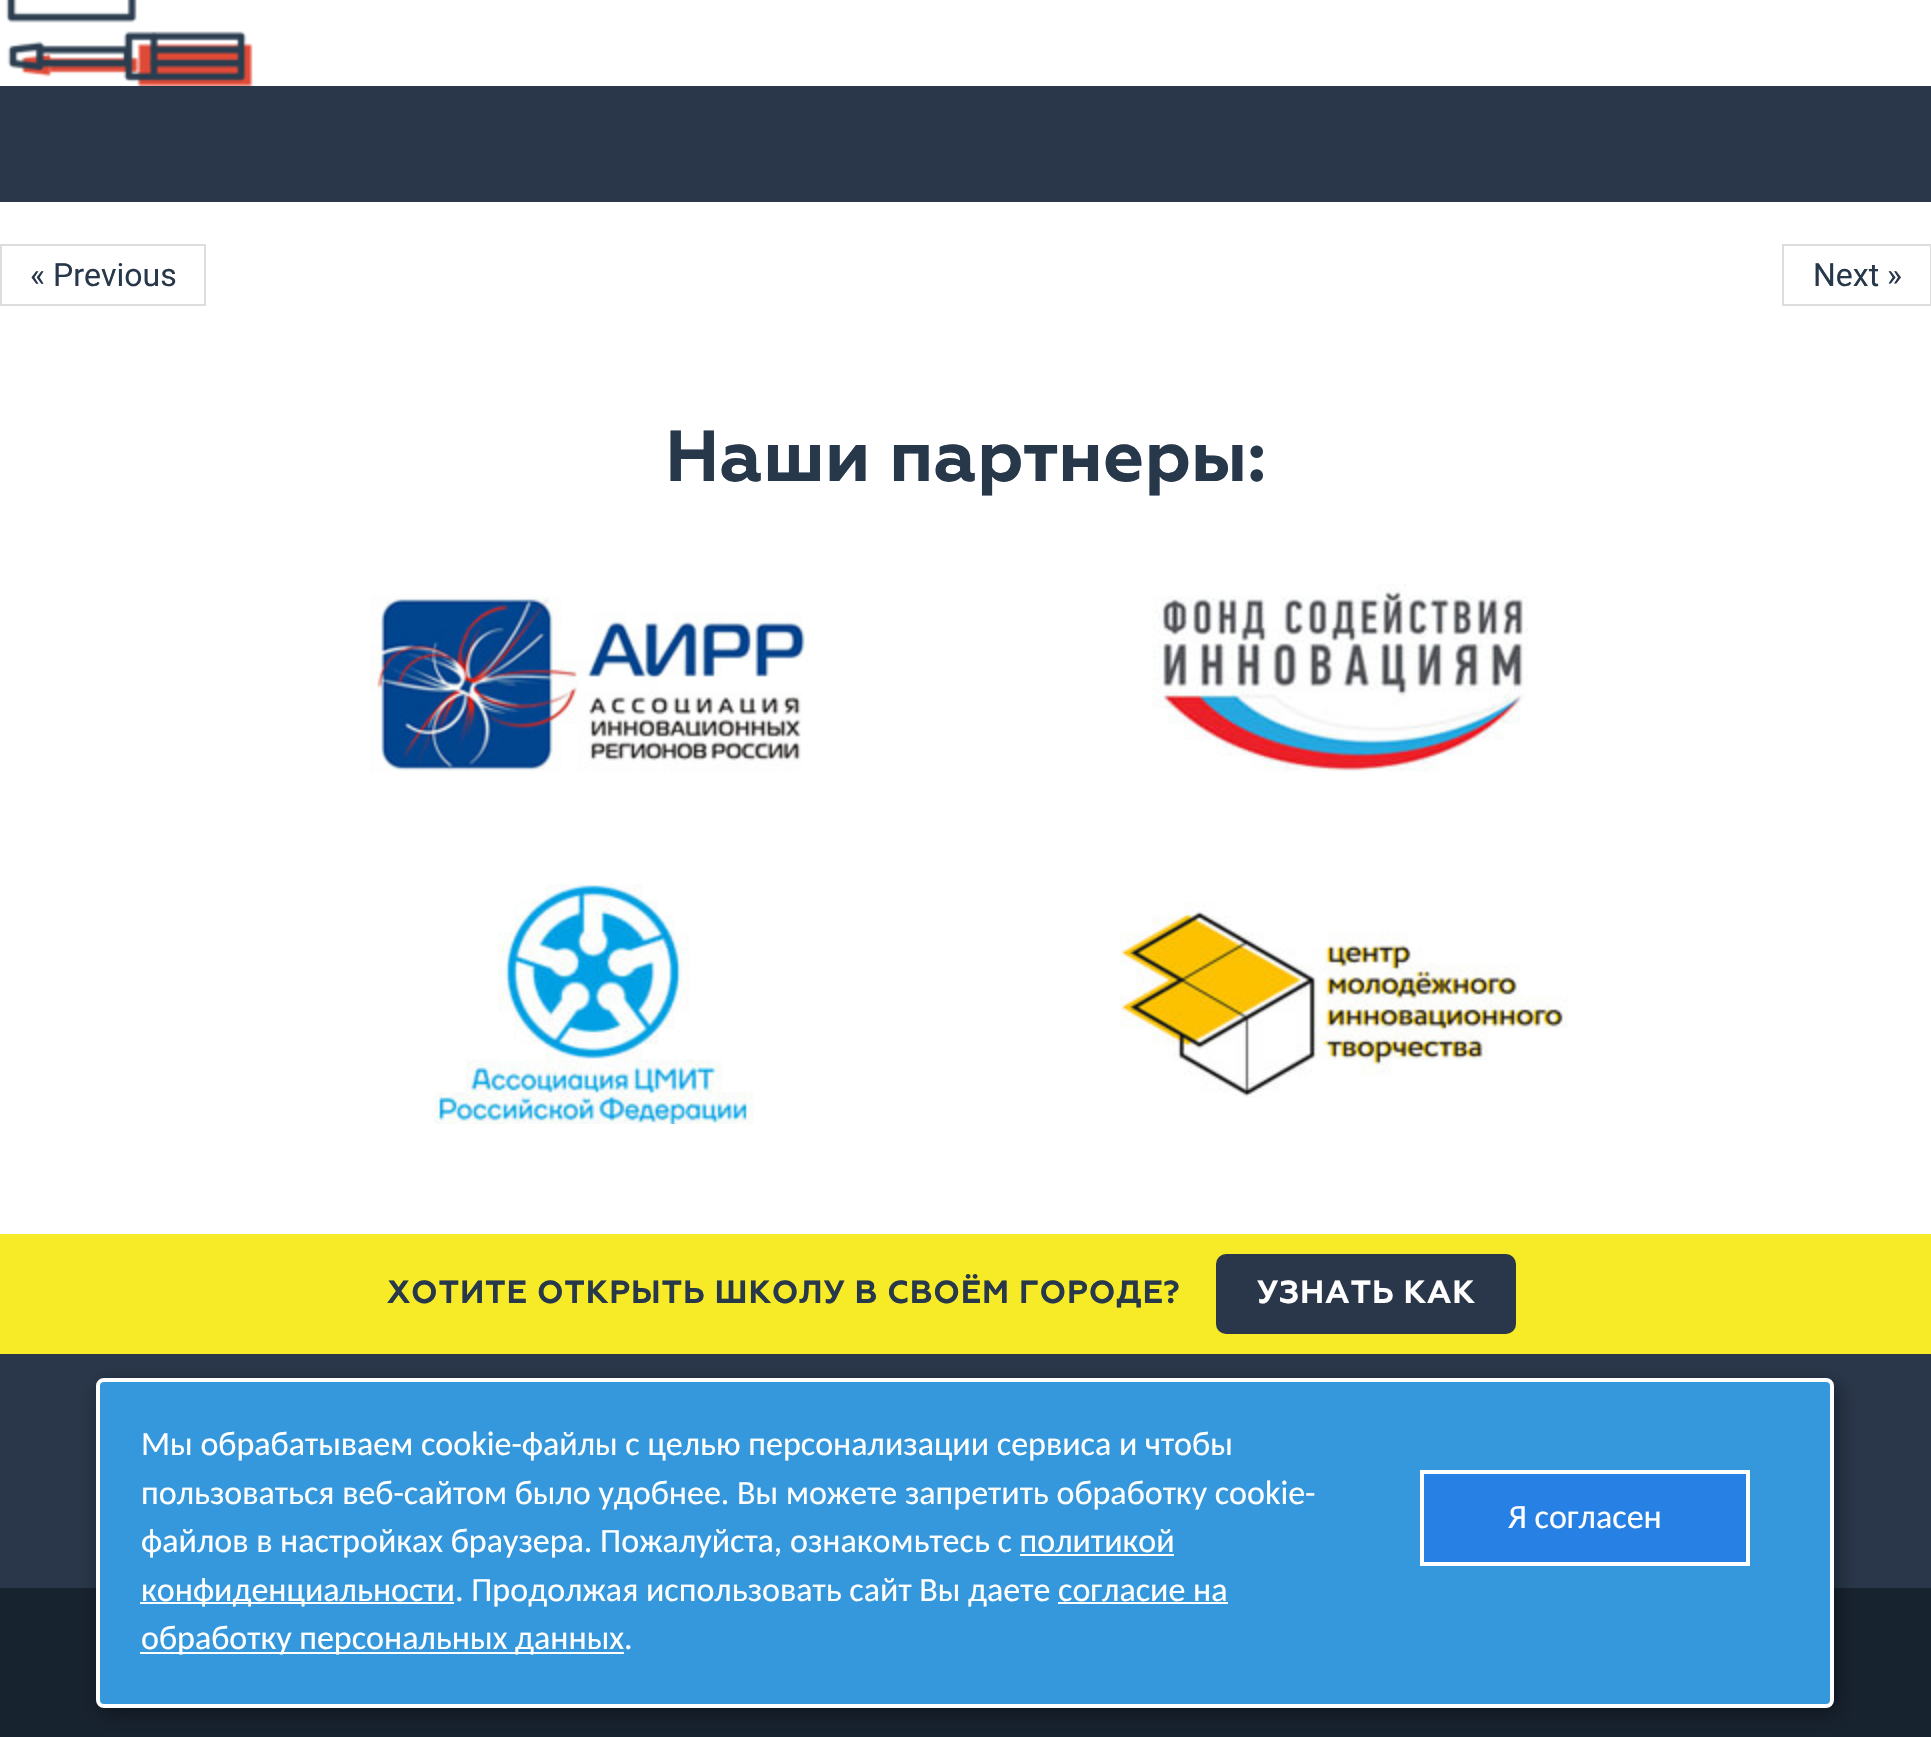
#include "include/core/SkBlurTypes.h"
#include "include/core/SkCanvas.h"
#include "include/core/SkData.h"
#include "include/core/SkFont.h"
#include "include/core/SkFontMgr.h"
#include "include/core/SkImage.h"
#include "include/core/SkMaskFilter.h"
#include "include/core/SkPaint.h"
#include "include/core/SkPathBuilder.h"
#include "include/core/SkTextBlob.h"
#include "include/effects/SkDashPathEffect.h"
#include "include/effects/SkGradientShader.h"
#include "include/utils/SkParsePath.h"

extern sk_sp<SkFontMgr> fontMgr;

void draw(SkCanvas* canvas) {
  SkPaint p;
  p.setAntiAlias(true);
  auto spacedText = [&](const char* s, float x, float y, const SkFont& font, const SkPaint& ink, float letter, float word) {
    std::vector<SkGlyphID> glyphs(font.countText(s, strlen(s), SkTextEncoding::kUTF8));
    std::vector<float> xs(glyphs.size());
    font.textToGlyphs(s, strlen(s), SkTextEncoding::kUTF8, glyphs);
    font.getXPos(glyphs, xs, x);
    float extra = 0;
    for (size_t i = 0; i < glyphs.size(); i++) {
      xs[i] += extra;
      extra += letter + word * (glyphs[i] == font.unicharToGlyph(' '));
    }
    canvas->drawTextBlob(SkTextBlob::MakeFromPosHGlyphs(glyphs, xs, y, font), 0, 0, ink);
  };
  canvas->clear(SK_ColorWHITE);
  canvas->drawImageRect(SkImages::DeferredFromEncodedData(SkData::MakeFromFileName("images/1.png")), SkRect::MakeLTRB(5, 0, 253, 86), SkSamplingOptions());
  p.setColor(SkColorSetRGB(42, 55, 74));
  canvas->drawRect(SkRect::MakeLTRB(0, 86, 1931, 202), p);
  p.setStyle(SkPaint::kStroke_Style);
  p.setStrokeWidth(2);
  p.setColor(SkColorSetRGB(221, 221, 221));
  canvas->drawRect(SkRect::MakeLTRB(1, 245, 205, 305), p);
  canvas->drawRect(SkRect::MakeLTRB(1783, 245, 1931, 305), p);
  canvas->drawImageRect(SkImages::DeferredFromEncodedData(SkData::MakeFromFileName("images/2.png")), SkRect::MakeLTRB(370, 596, 810, 772), SkSamplingOptions());
  canvas->drawImageRect(SkImages::DeferredFromEncodedData(SkData::MakeFromFileName("images/3.png")), SkRect::MakeLTRB(1152, 584, 1528, 772), SkSamplingOptions());
  canvas->drawImageRect(SkImages::DeferredFromEncodedData(SkData::MakeFromFileName("images/4.png")), SkRect::MakeLTRB(433, 884, 754, 1124), SkSamplingOptions());
  canvas->drawImageRect(SkImages::DeferredFromEncodedData(SkData::MakeFromFileName("images/5.png")), SkRect::MakeLTRB(1120, 902, 1568, 1098), SkSamplingOptions());
  p.setStyle(SkPaint::kFill_Style);
  p.setColor(SkColorSetRGB(247, 234, 39));
  canvas->drawRect(SkRect::MakeLTRB(0, 1234, 1931, 1354), p);
  p.setColor(SkColorSetRGB(42, 55, 74));
  canvas->drawRoundRect(SkRect::MakeLTRB(1216, 1254, 1516, 1334), 10, 10, p);
  canvas->drawRect(SkRect::MakeLTRB(0, 1354, 1931, 1588), p);
  p.setColor(SkColorSetRGB(24, 35, 48));
  canvas->drawRect(SkRect::MakeLTRB(0, 1588, 1931, 1737), p);
  p.setColor(SkColorSetARGB(102, 0, 0, 0));
  p.setMaskFilter(SkMaskFilter::MakeBlur(kNormal_SkBlurStyle, 10));
  canvas->drawRoundRect(SkRect::MakeLTRB(100, 1384, 1838, 1714), 8, 8, p);
  p.setMaskFilter(nullptr);
  p.setColor(SkColorSetRGB(53, 152, 220));
  canvas->drawRoundRect(SkRect::MakeLTRB(98, 1380, 1832, 1706), 6, 6, p);
  p.setStyle(SkPaint::kStroke_Style);
  p.setStrokeWidth(4);
  p.setColor(SK_ColorWHITE);
  canvas->drawRoundRect(SkRect::MakeLTRB(98, 1380, 1832, 1706), 6, 6, p);
  p.setStyle(SkPaint::kFill_Style);
  canvas->drawRect(SkRect::MakeLTRB(1020, 1554, 1174, 1556), p);
  canvas->drawRect(SkRect::MakeLTRB(140, 1602, 454, 1604), p);
  canvas->drawRect(SkRect::MakeLTRB(1058, 1602, 1228, 1604), p);
  canvas->drawRect(SkRect::MakeLTRB(140, 1652, 624, 1654), p);
  p.setColor(SkColorSetRGB(39, 128, 227));
  canvas->drawRect(SkRect::MakeLTRB(1422, 1472, 1748, 1564), p);
  p.setStyle(SkPaint::kStroke_Style);
  p.setColor(SK_ColorWHITE);
  canvas->drawRect(SkRect::MakeLTRB(1422, 1472, 1748, 1564), p);
  SkFont font1(fontMgr->matchFamilyStyle("Roboto", SkFontStyle::Normal()), 32);
  font1.setSubpixel(true);
  p.setStyle(SkPaint::kFill_Style);
  p.setColor(SkColorSetRGB(40, 56, 75));
  canvas->drawString("« Previous", 30, 286, font1, p);
  canvas->drawString("Next »", 1813, 286, font1, p);
  SkFont font2(fontMgr->matchFamilyStyle("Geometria", SkFontStyle::Bold()), 72);
  font2.setSubpixel(true);
  canvas->drawString("Наши партнеры:", 665, 481, font2, p);
  SkFont font3(fontMgr->matchFamilyStyle("Geometria", SkFontStyle::Bold()), 32);
  font3.setSubpixel(true);
  spacedText("ХОТИТЕ ОТКРЫТЬ ШКОЛУ В СВОЁМ ГОРОДЕ?", 387, 1303, font3, p, 0.8f, 0);
  p.setColor(SK_ColorWHITE);
  spacedText("УЗНАТЬ КАК", 1257, 1303, font3, p, 0.8f, 0);
  SkFont font4(fontMgr->matchFamilyStyle("Carlito", SkFontStyle::Normal()), 34);
  font4.setSubpixel(true);
  canvas->drawString("Мы обрабатываем cookie-файлы с целью персонализации сервиса и чтобы", 141, 1455, font4, p);
  canvas->drawString("пользоваться веб-сайтом было удобнее. Вы можете запретить обработку cookie-", 141, 1504, font4, p);
  canvas->drawString("файлов в настройках браузера. Пожалуйста, ознакомьтесь с политикой", 141, 1552, font4, p);
  canvas->drawString("конфиденциальности. Продолжая использовать сайт Вы даете согласие на", 141, 1601, font4, p);
  canvas->drawString("обработку персональных данных.", 141, 1649, font4, p);
  canvas->drawString("Я согласен", 1508, 1528, font4, p);
}
